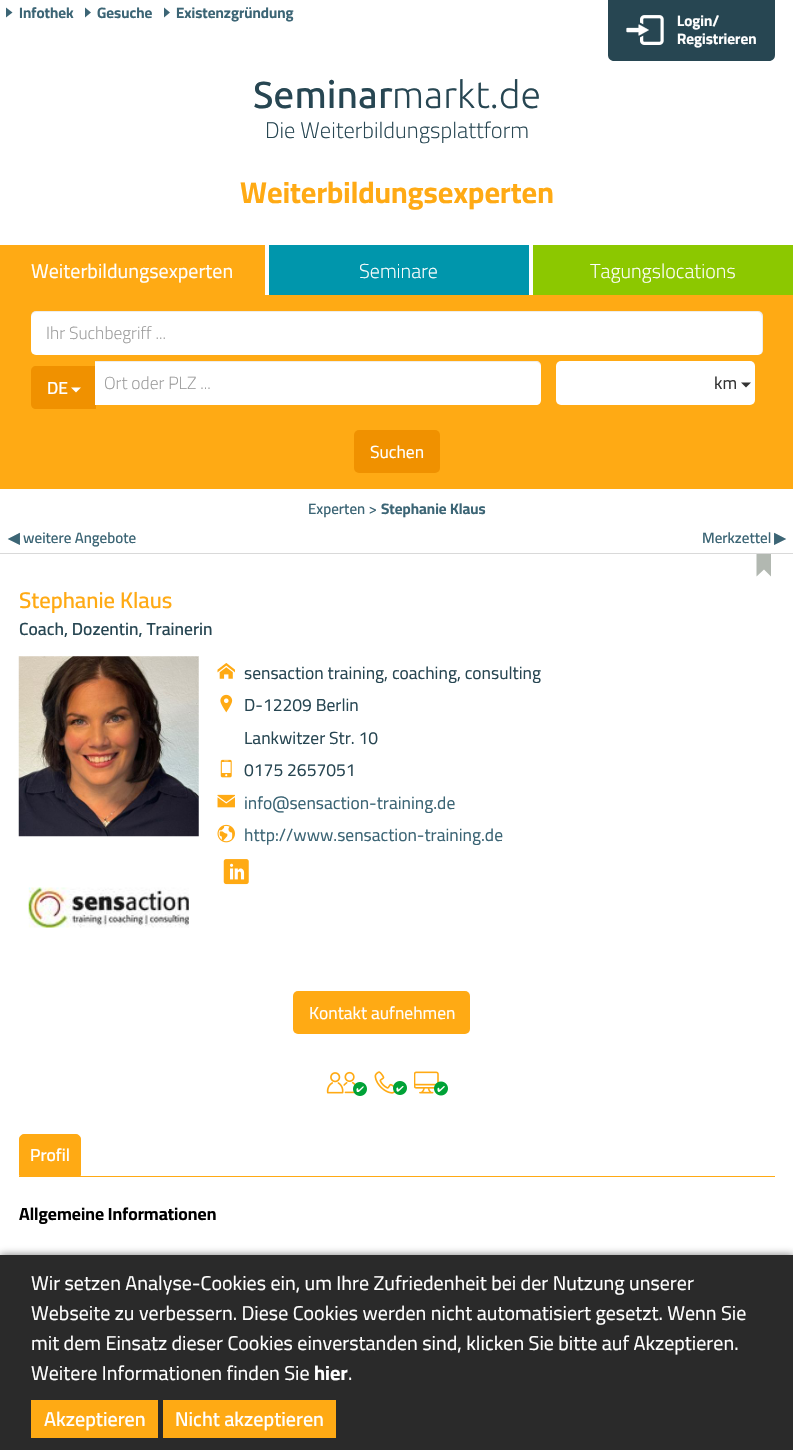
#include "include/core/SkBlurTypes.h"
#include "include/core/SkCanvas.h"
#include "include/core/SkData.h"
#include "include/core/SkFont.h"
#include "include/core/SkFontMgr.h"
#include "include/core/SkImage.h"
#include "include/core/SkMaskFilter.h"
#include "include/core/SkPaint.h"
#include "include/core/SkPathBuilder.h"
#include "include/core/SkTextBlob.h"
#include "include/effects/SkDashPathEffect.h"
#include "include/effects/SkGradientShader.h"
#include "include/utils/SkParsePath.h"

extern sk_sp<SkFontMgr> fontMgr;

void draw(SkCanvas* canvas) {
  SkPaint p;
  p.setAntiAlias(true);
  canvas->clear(SK_ColorWHITE);
  p.setColor(SkColorSetRGB(60, 101, 117));
  canvas->drawPath(SkPathBuilder().moveTo(6, 17.5f).lineTo(6, 7.5f).lineTo(12.5f, 12.5f).close().detach(), p);
  canvas->drawPath(SkPathBuilder().moveTo(85, 17.5f).lineTo(85, 7.5f).lineTo(91, 12.5f).close().detach(), p);
  canvas->drawPath(SkPathBuilder().moveTo(164, 17.5f).lineTo(164, 7.5f).lineTo(170, 12.5f).close().detach(), p);
  p.setColor(SkColorSetRGB(39, 70, 82));
  canvas->drawPath(SkPathBuilder().moveTo(608, 0).lineTo(775, 0).lineTo(775, 55).cubicTo(775, 58.5f, 772.5f, 61, 769, 61).lineTo(614, 61).cubicTo(610.5f, 61, 608, 58.5f, 608, 55).close().detach(), p);
  canvas->drawImageRect(SkImages::DeferredFromEncodedData(SkData::MakeFromFileName("images/1.png")), SkRect::MakeLTRB(626, 15, 664, 45), SkSamplingOptions());
  p.setColor(SkColorSetRGB(255, 170, 20));
  canvas->drawRect(SkRect::MakeLTRB(0, 245, 265, 295), p);
  p.setColor(SkColorSetRGB(0, 150, 172));
  canvas->drawRect(SkRect::MakeLTRB(269, 245, 529, 295), p);
  p.setColor(SkColorSetRGB(140, 200, 0));
  canvas->drawRect(SkRect::MakeLTRB(533, 245, 793, 295), p);
  p.setColor(SkColorSetRGB(255, 170, 20));
  canvas->drawRect(SkRect::MakeLTRB(0, 295, 793, 489), p);
  p.setColor(SK_ColorWHITE);
  canvas->drawRoundRect(SkRect::MakeLTRB(31, 311, 763, 355), 5, 5, p);
  p.setColor(SkColorSetARGB(18, 0, 0, 0));
  canvas->drawPath(SkPathBuilder().moveTo(36, 312).lineTo(758, 312).cubicTo(760, 312, 762, 315, 762, 318).lineTo(762, 351).lineTo(761, 354).cubicTo(762, 353, 763, 351, 763, 350).lineTo(763, 316).cubicTo(763, 313, 761, 311, 758, 311).lineTo(36, 311).cubicTo(33, 311, 31, 313, 31, 316).lineTo(31, 318).cubicTo(31, 315, 33, 312, 36, 312).close().detach(), p);
  p.setColor(SkColorSetRGB(240, 145, 0));
  canvas->drawPath(SkPathBuilder().moveTo(36, 366).lineTo(96, 366).lineTo(96, 409).lineTo(36, 409).cubicTo(33, 409, 31, 407, 31, 404).lineTo(31, 371).cubicTo(31, 368, 33, 366, 36, 366).close().detach(), p);
  p.setColor(SK_ColorWHITE);
  canvas->drawPath(SkPathBuilder().moveTo(71, 387.5f).lineTo(81, 387.5f).lineTo(76, 392.5f).close().detach(), p);
  canvas->drawPath(SkPathBuilder().moveTo(95, 361).lineTo(536, 361).cubicTo(539, 361, 541, 363, 541, 366).lineTo(541, 400).cubicTo(541, 403, 539, 405, 536, 405).lineTo(95, 405).close().detach(), p);
  p.setColor(SkColorSetARGB(18, 0, 0, 0));
  canvas->drawPath(SkPathBuilder().moveTo(95, 362).lineTo(536, 362).cubicTo(539, 362, 541, 365, 541, 368).cubicTo(541, 365, 540, 361, 536, 361).lineTo(95, 361).close().detach(), p);
  p.setColor(SK_ColorWHITE);
  canvas->drawRoundRect(SkRect::MakeLTRB(556, 361, 755, 405), 5, 5, p);
  p.setColor(SkColorSetRGB(51, 51, 51));
  canvas->drawPath(SkPathBuilder().moveTo(741, 382.5f).lineTo(751, 382.5f).lineTo(746, 387.5f).close().detach(), p);
  p.setColor(SkColorSetRGB(240, 145, 0));
  canvas->drawRoundRect(SkRect::MakeLTRB(354, 430, 440, 473), 5, 5, p);
  p.setColor(SkColorSetRGB(217, 217, 217));
  canvas->drawRect(SkRect::MakeLTRB(0, 553, 793, 554), p);
  p.setColor(SkColorSetRGB(178, 184, 177));
  canvas->drawPath(SkPathBuilder().moveTo(756.5f, 554).lineTo(756.5f, 576.5f).lineTo(764, 569.5f).lineTo(771, 576.5f).lineTo(771, 554).close().detach(), p);
  canvas->drawImageRect(SkImages::DeferredFromEncodedData(SkData::MakeFromFileName("images/2.png")), SkRect::MakeLTRB(18, 656, 199, 837), SkSamplingOptions());
  canvas->drawImageRect(SkImages::DeferredFromEncodedData(SkData::MakeFromFileName("images/3.png")), SkRect::MakeLTRB(28, 887, 189, 928), SkSamplingOptions());
  canvas->drawImageRect(SkImages::DeferredFromEncodedData(SkData::MakeFromFileName("images/4.png")), SkRect::MakeLTRB(217, 663, 235, 679), SkSamplingOptions());
  canvas->drawImageRect(SkImages::DeferredFromEncodedData(SkData::MakeFromFileName("images/5.png")), SkRect::MakeLTRB(220, 694, 233, 713), SkSamplingOptions());
  canvas->drawImageRect(SkImages::DeferredFromEncodedData(SkData::MakeFromFileName("images/6.png")), SkRect::MakeLTRB(220, 759, 232, 778), SkSamplingOptions());
  canvas->drawImageRect(SkImages::DeferredFromEncodedData(SkData::MakeFromFileName("images/7.png")), SkRect::MakeLTRB(217, 794, 235, 808), SkSamplingOptions());
  canvas->drawImageRect(SkImages::DeferredFromEncodedData(SkData::MakeFromFileName("images/8.png")), SkRect::MakeLTRB(217, 824, 235, 843), SkSamplingOptions());
  canvas->drawImageRect(SkImages::DeferredFromEncodedData(SkData::MakeFromFileName("images/9.png")), SkRect::MakeLTRB(223, 859, 249, 885), SkSamplingOptions());
  p.setColor(SkColorSetRGB(255, 170, 20));
  canvas->drawRoundRect(SkRect::MakeLTRB(293, 991, 470, 1034), 5, 5, p);
  canvas->drawImageRect(SkImages::DeferredFromEncodedData(SkData::MakeFromFileName("images/10.png")), SkRect::MakeLTRB(326, 1071, 367, 1096), SkSamplingOptions());
  canvas->drawImageRect(SkImages::DeferredFromEncodedData(SkData::MakeFromFileName("images/11.png")), SkRect::MakeLTRB(374, 1071, 407, 1095), SkSamplingOptions());
  canvas->drawImageRect(SkImages::DeferredFromEncodedData(SkData::MakeFromFileName("images/12.png")), SkRect::MakeLTRB(414, 1071, 448, 1096), SkSamplingOptions());
  canvas->drawRect(SkRect::MakeLTRB(19, 1176, 775, 1177), p);
  canvas->drawPath(SkPathBuilder().moveTo(24, 1134.5f).lineTo(76, 1134.5f).cubicTo(78.5f, 1134.5f, 80.5f, 1136.5f, 80.5f, 1139).lineTo(80.5f, 1175.5f).lineTo(19.5f, 1175.5f).lineTo(19.5f, 1139).cubicTo(19.5f, 1136.5f, 21.5f, 1134.5f, 24, 1134.5f).close().detach(), p);
  p.setStyle(SkPaint::kStroke_Style);
  p.setStrokeWidth(1);
  canvas->drawPath(SkPathBuilder().moveTo(24, 1134.5f).lineTo(76, 1134.5f).cubicTo(78.5f, 1134.5f, 80.5f, 1136.5f, 80.5f, 1139).lineTo(80.5f, 1175.5f).lineTo(19.5f, 1175.5f).lineTo(19.5f, 1139).cubicTo(19.5f, 1136.5f, 21.5f, 1134.5f, 24, 1134.5f).close().detach(), p);
  p.setStyle(SkPaint::kFill_Style);
  p.setColor(SkColorSetARGB(153, 30, 30, 30));
  p.setMaskFilter(SkMaskFilter::MakeBlur(kNormal_SkBlurStyle, 4));
  canvas->drawRect(SkRect::MakeLTRB(0, 1255, 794, 1450), p);
  p.setMaskFilter(nullptr);
  p.setColor(SkColorSetRGB(42, 42, 42));
  canvas->drawRect(SkRect::MakeLTRB(0, 1255, 793, 1450), p);
  p.setColor(SkColorSetRGB(255, 170, 20));
  canvas->drawRect(SkRect::MakeLTRB(31, 1400, 158, 1438), p);
  canvas->drawRect(SkRect::MakeLTRB(163, 1400, 336, 1438), p);
  SkFont font1(fontMgr->matchFamilyStyle("Cairo", SkFontStyle::Bold()), 15);
  font1.setSubpixel(true);
  p.setColor(SkColorSetRGB(60, 101, 117));
  canvas->drawString("Infothek", 19, 18, font1, p);
  canvas->drawString("Gesuche", 97, 18, font1, p);
  canvas->drawString("Existenzgründung", 176, 18, font1, p);
  p.setColor(SK_ColorWHITE);
  canvas->drawString("Login/", 677, 26, font1, p);
  canvas->drawString("Registrieren", 677, 44, font1, p);
  SkFont font2(fontMgr->matchFamilyStyle("Ubuntu", SkFontStyle(500, SkFontStyle::kNormal_Width, SkFontStyle::kUpright_Slant)), 37.5f);
  font2.setSubpixel(true);
  p.setColor(SkColorSetRGB(39, 70, 82));
  canvas->drawString("Seminar", 253, 108, font2, p);
  SkFont font3(fontMgr->matchFamilyStyle("Ubuntu", SkFontStyle(300, SkFontStyle::kNormal_Width, SkFontStyle::kUpright_Slant)), 37.5f);
  font3.setSubpixel(true);
  canvas->drawString("markt.de", 392, 108, font3, p);
  SkFont font4(fontMgr->matchFamilyStyle("Cairo", SkFontStyle(300, SkFontStyle::kNormal_Width, SkFontStyle::kUpright_Slant)), 22.5f);
  font4.setSubpixel(true);
  canvas->drawString("Die Weiterbildungsplattform", 265, 138, font4, p);
  SkFont font5(fontMgr->matchFamilyStyle("Cairo", SkFontStyle::Bold()), 30);
  font5.setSubpixel(true);
  p.setColor(SkColorSetRGB(255, 170, 20));
  canvas->drawString("Weiterbildungsexperten", 240, 203, font5, p);
  SkFont font6(fontMgr->matchFamilyStyle("Cairo", SkFontStyle::Normal()), 20);
  font6.setSubpixel(true);
  p.setColor(SK_ColorWHITE);
  canvas->drawString("Weiterbildungsexperten", 31, 278, font6, p);
  SkFont font7(fontMgr->matchFamilyStyle("Cairo", SkFontStyle(300, SkFontStyle::kNormal_Width, SkFontStyle::kUpright_Slant)), 20);
  font7.setSubpixel(true);
  canvas->drawString("Seminare", 359, 278, font7, p);
  canvas->drawString("Tagungslocations", 590, 278, font7, p);
  SkFont font8(fontMgr->matchFamilyStyle("Cairo", SkFontStyle(300, SkFontStyle::kNormal_Width, SkFontStyle::kUpright_Slant)), 17.5f);
  font8.setSubpixel(true);
  p.setColor(SkColorSetRGB(153, 153, 153));
  canvas->drawString("Ihr Suchbegriff ...", 46, 339, font8, p);
  SkFont font9(fontMgr->matchFamilyStyle("Cairo", SkFontStyle(600, SkFontStyle::kNormal_Width, SkFontStyle::kUpright_Slant)), 17.5f);
  font9.setSubpixel(true);
  p.setColor(SK_ColorWHITE);
  canvas->drawString("DE", 47, 394, font9, p);
  p.setColor(SkColorSetRGB(153, 153, 153));
  canvas->drawString("Ort oder PLZ ...", 104, 389, font8, p);
  SkFont font10(fontMgr->matchFamilyStyle("Cairo", SkFontStyle::Normal()), 17.5f);
  font10.setSubpixel(true);
  p.setColor(SkColorSetRGB(51, 51, 51));
  canvas->drawString("km", 714, 389, font10, p);
  p.setColor(SK_ColorWHITE);
  canvas->drawString("Suchen", 370, 458, font10, p);
  SkFont font11(fontMgr->matchFamilyStyle("Cairo", SkFontStyle(600, SkFontStyle::kNormal_Width, SkFontStyle::kUpright_Slant)), 15);
  font11.setSubpixel(true);
  p.setColor(SkColorSetRGB(60, 101, 117));
  canvas->drawString("Experten >", 308, 514, font11, p);
  canvas->drawString("Stephanie Klaus", 381, 514, font1, p);
  SkFont font12(fontMgr->matchFamilyStyle("DejaVu Sans", SkFontStyle::Bold()), 15);
  font12.setSubpixel(true);
  canvas->drawString("◀", 8, 543, font12, p);
  canvas->drawString("weitere Angebote", 23, 543, font11, p);
  canvas->drawString("Merkzettel", 702, 543, font11, p);
  canvas->drawString("▶", 774, 543, font12, p);
  SkFont font13(fontMgr->matchFamilyStyle("Cairo", SkFontStyle(600, SkFontStyle::kNormal_Width, SkFontStyle::kUpright_Slant)), 22.5f);
  font13.setSubpixel(true);
  p.setColor(SkColorSetRGB(255, 170, 20));
  canvas->drawString("Stephanie Klaus", 19, 608, font13, p);
  p.setColor(SkColorSetRGB(39, 70, 82));
  canvas->drawString("Coach, Dozentin, Trainerin", 19, 635, font9, p);
  canvas->drawString("sensaction training, coaching, consulting", 244, 679, font10, p);
  canvas->drawString("D-12209 Berlin", 244, 711, font10, p);
  canvas->drawString("Lankwitzer Str. 10", 244, 744, font10, p);
  canvas->drawString("0175 2657051", 244, 776, font10, p);
  p.setColor(SkColorSetRGB(60, 101, 117));
  canvas->drawString("info@sensaction-training.de", 244, 809, font10, p);
  canvas->drawString("http://www.sensaction-training.de", 244, 841, font10, p);
  p.setColor(SK_ColorWHITE);
  canvas->drawString("Kontakt aufnehmen", 309, 1019, font10, p);
  canvas->drawString("Profil", 30, 1161, font9, p);
  SkFont font14(fontMgr->matchFamilyStyle("Cairo", SkFontStyle::Bold()), 17.5f);
  font14.setSubpixel(true);
  p.setColor(SK_ColorBLACK);
  canvas->drawString("Allgemeine Informationen", 19, 1220, font14, p);
  p.setColor(SK_ColorWHITE);
  canvas->drawString("Wir setzen Analyse-Cookies ein, um Ihre Zufriedenheit bei der Nutzung unserer", 31, 1290, font6, p);
  canvas->drawString("Webseite zu verbessern. Diese Cookies werden nicht automatisiert gesetzt. Wenn Sie", 31, 1320, font6, p);
  canvas->drawString("mit dem Einsatz dieser Cookies einverstanden sind, klicken Sie bitte auf Akzeptieren.", 31, 1350, font6, p);
  canvas->drawString("Weitere Informationen finden Sie", 31, 1380, font6, p);
  SkFont font15(fontMgr->matchFamilyStyle("Cairo", SkFontStyle::Bold()), 20);
  font15.setSubpixel(true);
  canvas->drawString("hier", 314, 1380, font15, p);
  canvas->drawString(".", 348, 1380, font6, p);
  SkFont font16(fontMgr->matchFamilyStyle("Cairo", SkFontStyle(600, SkFontStyle::kNormal_Width, SkFontStyle::kUpright_Slant)), 20);
  font16.setSubpixel(true);
  canvas->drawString("Akzeptieren", 44, 1426, font16, p);
  canvas->drawString("Nicht akzeptieren", 175, 1426, font16, p);
}
